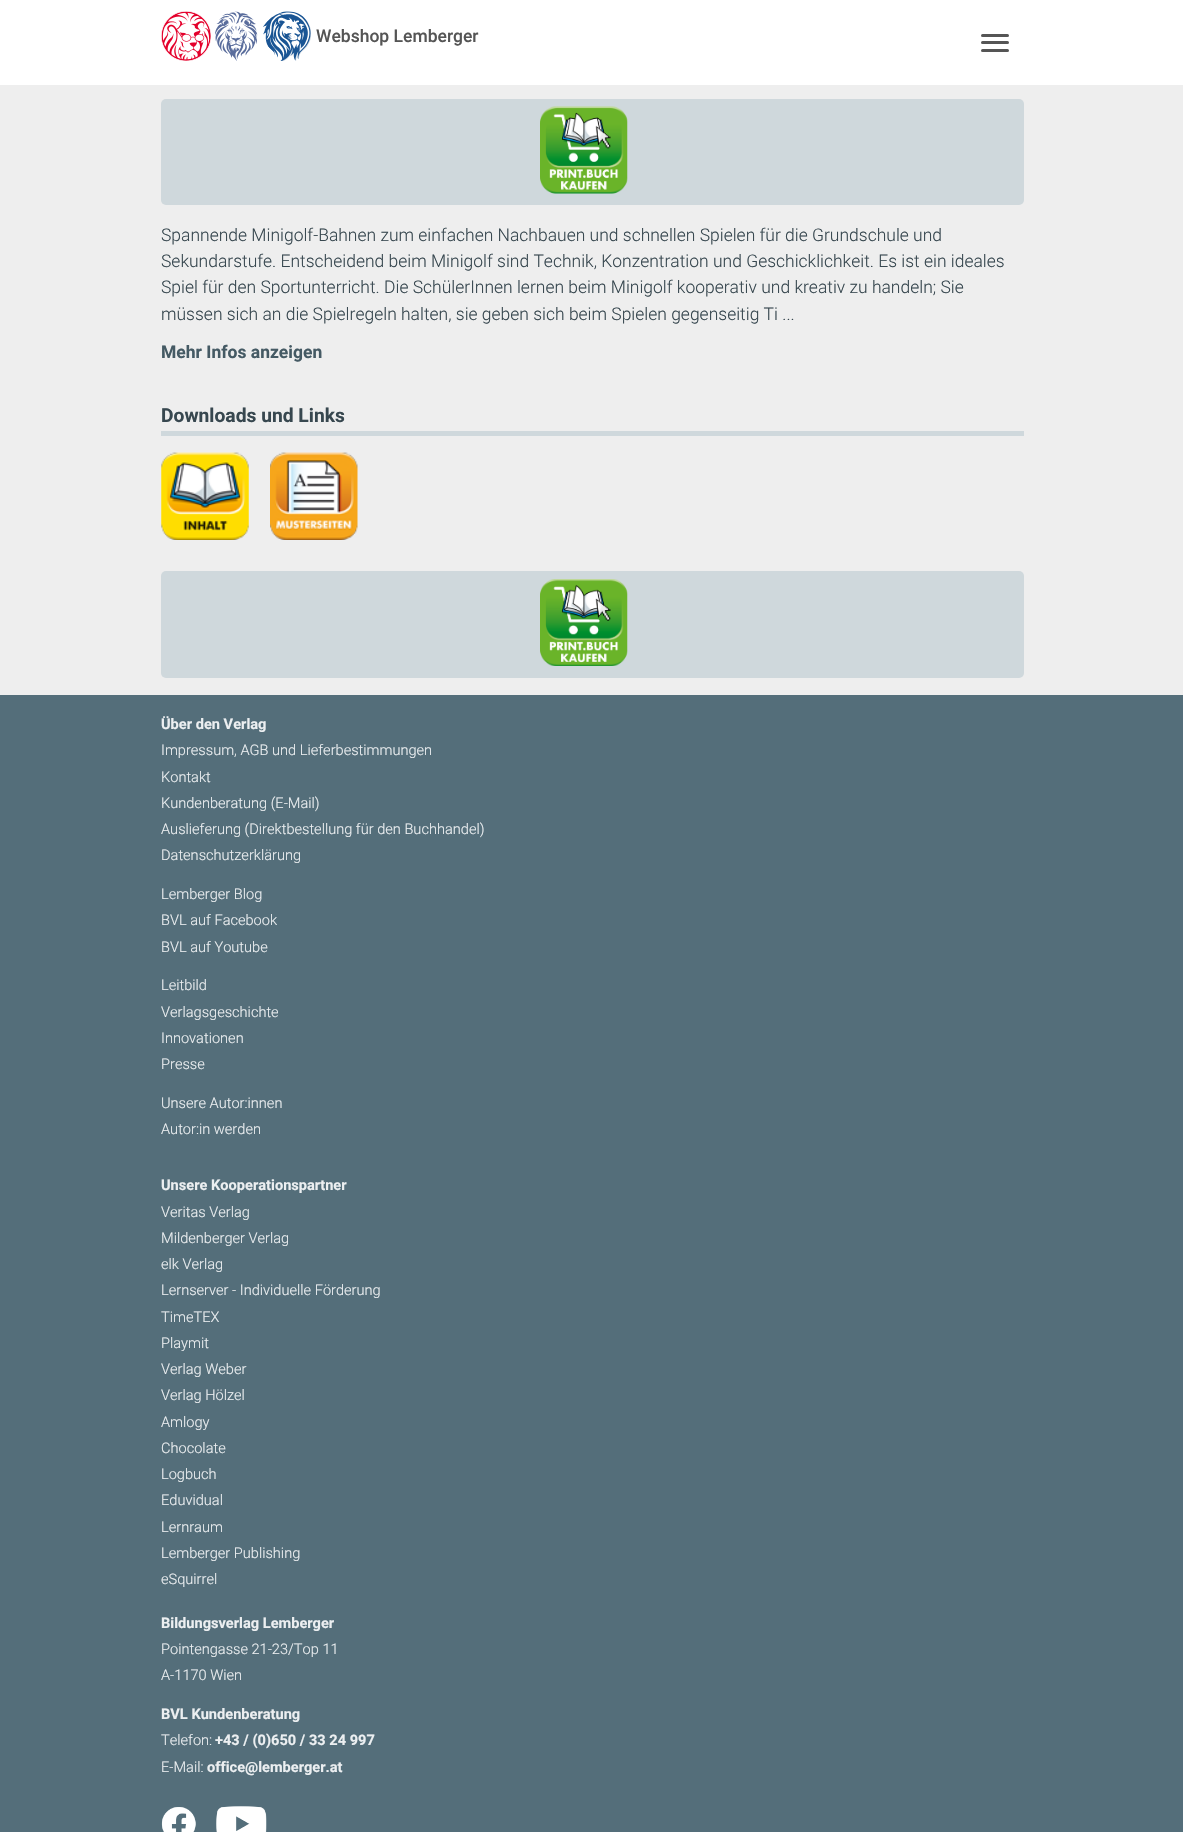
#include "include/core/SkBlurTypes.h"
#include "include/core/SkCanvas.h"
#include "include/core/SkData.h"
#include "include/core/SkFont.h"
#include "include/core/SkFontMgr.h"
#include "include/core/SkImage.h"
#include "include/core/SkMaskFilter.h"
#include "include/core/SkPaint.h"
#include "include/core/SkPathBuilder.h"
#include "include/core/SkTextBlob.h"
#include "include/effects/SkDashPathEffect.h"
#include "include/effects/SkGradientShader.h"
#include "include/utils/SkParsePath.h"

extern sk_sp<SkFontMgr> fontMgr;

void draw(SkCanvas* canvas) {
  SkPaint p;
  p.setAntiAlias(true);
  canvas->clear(SkColorSetRGB(238, 238, 238));
  p.setColor(SK_ColorWHITE);
  canvas->drawRect(SkRect::MakeLTRB(0, 0, 1183, 85), p);
  canvas->drawImageRect(SkImages::DeferredFromEncodedData(SkData::MakeFromFileName("images/1.png")), SkRect::MakeLTRB(161, 11, 211, 61), SkSamplingOptions());
  canvas->drawImageRect(SkImages::DeferredFromEncodedData(SkData::MakeFromFileName("images/2.png")), SkRect::MakeLTRB(215, 11, 258, 61), SkSamplingOptions());
  canvas->drawImageRect(SkImages::DeferredFromEncodedData(SkData::MakeFromFileName("images/3.png")), SkRect::MakeLTRB(263, 11, 311, 61), SkSamplingOptions());
  p.setColor(SkColorSetRGB(85, 85, 85));
  canvas->drawRoundRect(SkRect::MakeLTRB(981, 34, 1009, 37), 1.5f, 1.5f, p);
  canvas->drawRoundRect(SkRect::MakeLTRB(981, 41, 1009, 44), 1.5f, 1.5f, p);
  canvas->drawRoundRect(SkRect::MakeLTRB(981, 49, 1009, 52), 1.5f, 1.5f, p);
  p.setColor(SkColorSetRGB(207, 216, 220));
  canvas->drawRoundRect(SkRect::MakeLTRB(161, 99, 1024, 205), 5, 5, p);
  canvas->drawImageRect(SkImages::DeferredFromEncodedData(SkData::MakeFromFileName("images/4.png")), SkRect::MakeLTRB(540, 106, 628, 194), SkSamplingOptions());
  canvas->drawRect(SkRect::MakeLTRB(161, 431, 1024, 436), p);
  canvas->drawImageRect(SkImages::DeferredFromEncodedData(SkData::MakeFromFileName("images/5.png")), SkRect::MakeLTRB(161, 452, 249, 540), SkSamplingOptions());
  canvas->drawImageRect(SkImages::DeferredFromEncodedData(SkData::MakeFromFileName("images/6.png")), SkRect::MakeLTRB(270, 452, 358, 540), SkSamplingOptions());
  canvas->drawRoundRect(SkRect::MakeLTRB(161, 571, 1024, 678), 5, 5, p);
  canvas->drawImageRect(SkImages::DeferredFromEncodedData(SkData::MakeFromFileName("images/7.png")), SkRect::MakeLTRB(540, 579, 628, 666), SkSamplingOptions());
  p.setColor(SkColorSetRGB(84, 110, 122));
  canvas->drawRect(SkRect::MakeLTRB(0, 695, 1183, 1832), p);
  canvas->drawImageRect(SkImages::DeferredFromEncodedData(SkData::MakeFromFileName("images/8.png")), SkRect::MakeLTRB(161, 1807, 196, 1832), SkSamplingOptions());
  canvas->drawImageRect(SkImages::DeferredFromEncodedData(SkData::MakeFromFileName("images/9.png")), SkRect::MakeLTRB(216, 1806, 267, 1832), SkSamplingOptions());
  SkFont font1(fontMgr->matchFamilyStyle("Roboto", SkFontStyle(500, SkFontStyle::kNormal_Width, SkFontStyle::kUpright_Slant)), 17.5f);
  font1.setSubpixel(true);
  p.setColor(SkColorSetRGB(85, 85, 85));
  canvas->drawString("Webshop Lemberger", 316, 42, font1, p);
  SkFont font2(fontMgr->matchFamilyStyle("Roboto", SkFontStyle(300, SkFontStyle::kNormal_Width, SkFontStyle::kUpright_Slant)), 17.5f);
  font2.setSubpixel(true);
  p.setColor(SkColorSetRGB(55, 71, 79));
  canvas->drawString("Spannende Minigolf-Bahnen zum einfachen Nachbauen und schnellen Spielen für die Grundschule und", 161, 241, font2, p);
  canvas->drawString("Sekundarstufe. Entscheidend beim Minigolf sind Technik, Konzentration und Geschicklichkeit. Es ist ein ideales", 161, 267, font2, p);
  canvas->drawString("Spiel für den Sportunterricht. Die SchülerInnen lernen beim Minigolf kooperativ und kreativ zu handeln; Sie", 161, 293, font2, p);
  canvas->drawString("müssen sich an die Spielregeln halten, sie geben sich beim Spielen gegenseitig Ti ...", 161, 320, font2, p);
  SkFont font3(fontMgr->matchFamilyStyle("Roboto", SkFontStyle::Bold()), 17.5f);
  font3.setSubpixel(true);
  p.setColor(SkColorSetRGB(69, 90, 100));
  canvas->drawString("Mehr Infos anzeigen", 161, 358, font3, p);
  SkFont font4(fontMgr->matchFamilyStyle("Roboto", SkFontStyle::Bold()), 19.25f);
  font4.setSubpixel(true);
  p.setColor(SkColorSetRGB(55, 71, 79));
  canvas->drawString("Downloads und Links", 161, 422, font4, p);
  SkFont font5(fontMgr->matchFamilyStyle("Roboto", SkFontStyle::Bold()), 14.6f);
  font5.setSubpixel(true);
  p.setColor(SkColorSetRGB(236, 239, 241));
  canvas->drawString("Über den Verlag", 161, 729, font5, p);
  SkFont font6(fontMgr->matchFamilyStyle("Roboto", SkFontStyle(300, SkFontStyle::kNormal_Width, SkFontStyle::kUpright_Slant)), 14.6f);
  font6.setSubpixel(true);
  canvas->drawString("Impressum, AGB und Lieferbestimmungen", 161, 755, font6, p);
  canvas->drawString("Kontakt", 161, 782, font6, p);
  canvas->drawString("Kundenberatung (E-Mail)", 161, 808, font6, p);
  canvas->drawString("Auslieferung (Direktbestellung für den Buchhandel)", 161, 834, font6, p);
  canvas->drawString("Datenschutzerklärung", 161, 860, font6, p);
  canvas->drawString("Lemberger Blog", 161, 899, font6, p);
  canvas->drawString("BVL auf Facebook", 161, 925, font6, p);
  canvas->drawString("BVL auf Youtube", 161, 952, font6, p);
  canvas->drawString("Leitbild", 161, 990, font6, p);
  canvas->drawString("Verlagsgeschichte", 161, 1017, font6, p);
  canvas->drawString("Innovationen", 161, 1043, font6, p);
  canvas->drawString("Presse", 161, 1069, font6, p);
  canvas->drawString("Unsere Autor:innen", 161, 1108, font6, p);
  canvas->drawString("Autor:in werden", 161, 1134, font6, p);
  canvas->drawString("Unsere Kooperationspartner", 161, 1190, font5, p);
  canvas->drawString("Veritas Verlag", 161, 1217, font6, p);
  canvas->drawString("Mildenberger Verlag", 161, 1243, font6, p);
  canvas->drawString("elk Verlag", 161, 1269, font6, p);
  canvas->drawString("Lernserver - Individuelle Förderung", 161, 1295, font6, p);
  canvas->drawString("TimeTEX", 161, 1322, font6, p);
  canvas->drawString("Playmit", 161, 1348, font6, p);
  canvas->drawString("Verlag Weber", 161, 1374, font6, p);
  canvas->drawString("Verlag Hölzel", 161, 1400, font6, p);
  canvas->drawString("Amlogy", 161, 1427, font6, p);
  canvas->drawString("Chocolate", 161, 1453, font6, p);
  canvas->drawString("Logbuch", 161, 1479, font6, p);
  canvas->drawString("Eduvidual", 161, 1505, font6, p);
  canvas->drawString("Lernraum", 161, 1532, font6, p);
  canvas->drawString("Lemberger Publishing", 161, 1558, font6, p);
  canvas->drawString("eSquirrel", 161, 1584, font6, p);
  canvas->drawString("Bildungsverlag Lemberger", 161, 1628, font5, p);
  canvas->drawString("Pointengasse 21-23/Top 11", 161, 1654, font6, p);
  canvas->drawString("A-1170 Wien", 161, 1680, font6, p);
  canvas->drawString("BVL Kundenberatung", 161, 1719, font5, p);
  canvas->drawString("Telefon:", 161, 1745, font6, p);
  canvas->drawString("+43 / (0)650 / 33 24 997", 215, 1745, font5, p);
  canvas->drawString("E-Mail:", 161, 1772, font6, p);
  canvas->drawString("office@lemberger.at", 207, 1772, font5, p);
}
